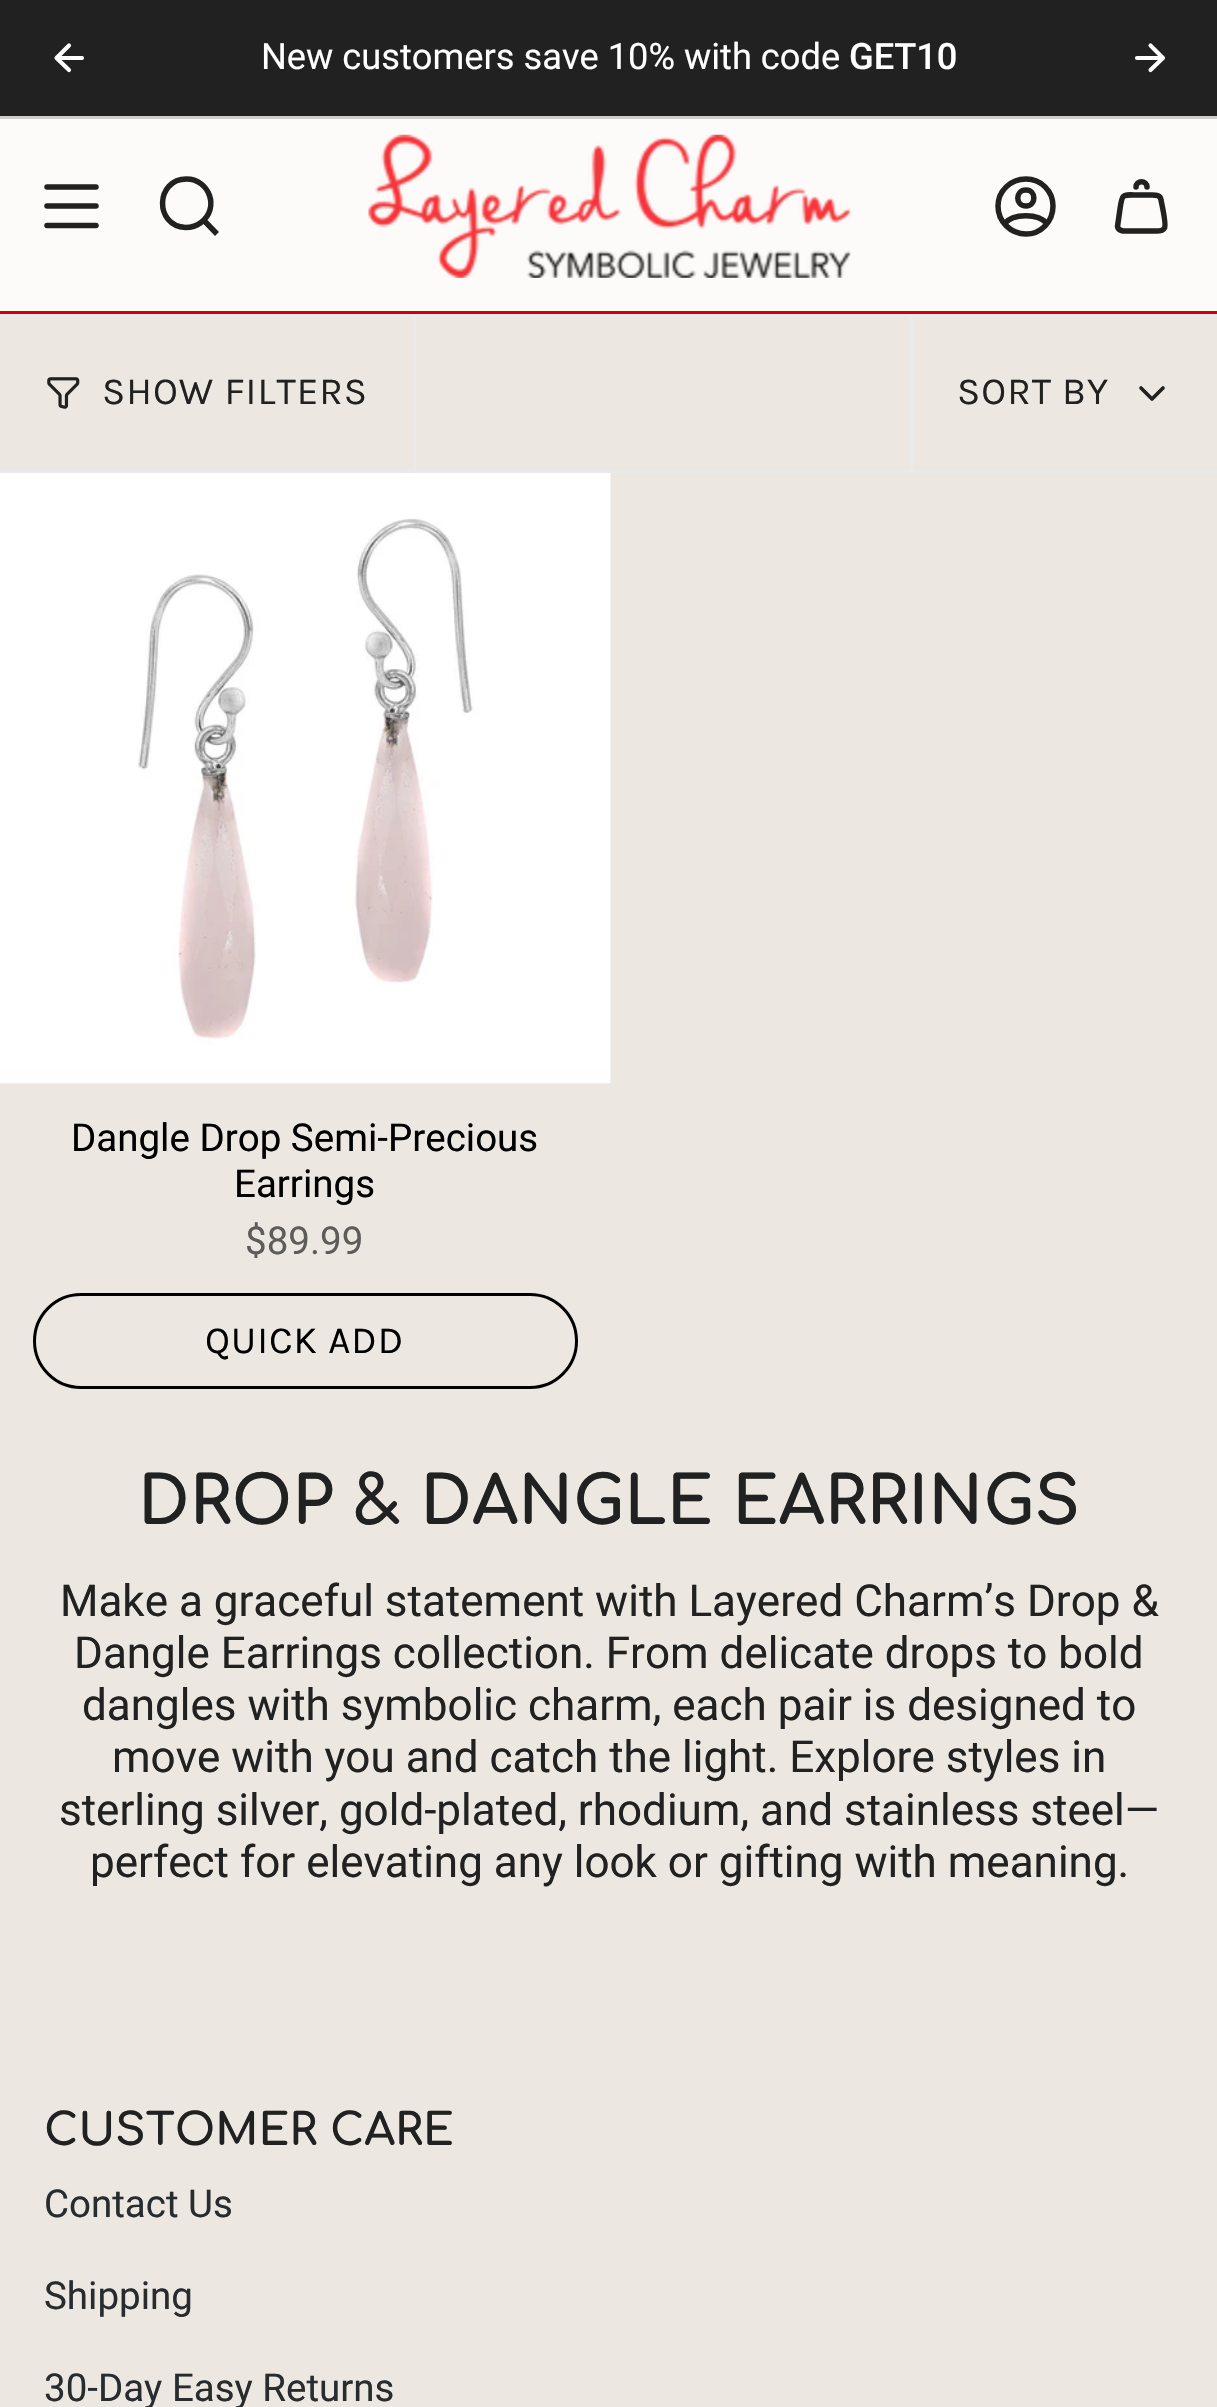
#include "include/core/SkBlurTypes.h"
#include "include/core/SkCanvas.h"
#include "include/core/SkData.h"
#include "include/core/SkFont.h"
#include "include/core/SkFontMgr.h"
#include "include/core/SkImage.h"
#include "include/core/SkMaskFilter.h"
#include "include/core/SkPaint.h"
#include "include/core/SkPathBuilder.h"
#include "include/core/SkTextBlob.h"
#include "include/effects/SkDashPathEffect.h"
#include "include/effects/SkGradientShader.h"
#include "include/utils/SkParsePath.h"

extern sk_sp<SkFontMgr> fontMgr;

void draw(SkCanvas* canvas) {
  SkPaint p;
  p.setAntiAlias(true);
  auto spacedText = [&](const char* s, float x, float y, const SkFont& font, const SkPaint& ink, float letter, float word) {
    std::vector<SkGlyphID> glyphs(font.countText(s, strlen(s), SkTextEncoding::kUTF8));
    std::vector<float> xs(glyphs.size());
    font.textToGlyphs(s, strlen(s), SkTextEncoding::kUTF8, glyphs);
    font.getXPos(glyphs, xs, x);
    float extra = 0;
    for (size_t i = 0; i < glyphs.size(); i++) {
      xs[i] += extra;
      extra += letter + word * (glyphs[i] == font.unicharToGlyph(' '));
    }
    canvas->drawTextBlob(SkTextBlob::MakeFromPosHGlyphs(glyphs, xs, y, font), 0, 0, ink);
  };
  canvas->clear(SkColorSetRGB(236, 231, 225));
  p.setColor(SkColorSetRGB(33, 33, 33));
  canvas->drawRect(SkRect::MakeLTRB(0, 0, 1217, 116), p);
  p.setStyle(SkPaint::kStroke_Style);
  p.setStrokeWidth(4.1f);
  p.setStrokeCap(SkPaint::kRound_Cap);
  p.setStrokeJoin(SkPaint::kRound_Join);
  p.setColor(SK_ColorWHITE);
  canvas->drawPath(SkPathBuilder().moveTo(82, 58).lineTo(56.5f, 58).moveTo(56.5f, 58).lineTo(69, 45.5f).moveTo(56.5f, 58).lineTo(69, 70).detach(), p);
  canvas->drawPath(SkPathBuilder().moveTo(1137, 58).lineTo(1163, 58).moveTo(1163, 58).lineTo(1150.5f, 45.5f).moveTo(1163, 58).lineTo(1150.5f, 70).detach(), p);
  p.setStyle(SkPaint::kFill_Style);
  p.setColor(SkColorSetRGB(208, 207, 206));
  canvas->drawRect(SkRect::MakeLTRB(0, 116, 1217, 119), p);
  p.setColor(SkColorSetRGB(252, 251, 249));
  canvas->drawRect(SkRect::MakeLTRB(0, 119, 1217, 311), p);
  p.setStyle(SkPaint::kStroke_Style);
  p.setStrokeWidth(5.5f);
  p.setColor(SkColorSetRGB(33, 33, 33));
  canvas->drawPath(SkPathBuilder().moveTo(47, 187).lineTo(96, 187).moveTo(47, 206).lineTo(96, 206).moveTo(47, 225.5f).lineTo(96, 225.5f).detach(), p);
  p.setStrokeCap(SkPaint::kButt_Cap);
  p.setStrokeJoin(SkPaint::kMiter_Join);
  canvas->drawPath(SkPathBuilder().moveTo(186.5f, 179).cubicTo(209.5f, 179, 220, 208.5f, 201, 222.5f).cubicTo(196.5f, 226, 191, 227.5f, 185.5f, 227.5f).cubicTo(154, 226, 155.5f, 179, 186.5f, 179).close().moveTo(204, 220.5f).lineTo(217, 234).detach(), p);
  canvas->drawImageRect(SkImages::DeferredFromEncodedData(SkData::MakeFromFileName("images/1.png")), SkRect::MakeLTRB(368, 134, 851, 278), SkSamplingOptions());
  p.setStrokeCap(SkPaint::kRound_Cap);
  p.setStrokeJoin(SkPaint::kRound_Join);
  canvas->drawPath(SkPathBuilder().moveTo(1026, 179).cubicTo(1010.5f, 179, 998, 191, 998, 206).cubicTo(998, 221.5f, 1010.5f, 234, 1026, 234).cubicTo(1041, 234, 1053, 221.5f, 1053, 206).cubicTo(1053, 191, 1041, 179, 1026, 179).close().moveTo(1004.5f, 223.5f).cubicTo(1013, 213, 1038.5f, 213, 1047, 223.5f).moveTo(1026, 206).cubicTo(1036.5f, 206, 1036.5f, 190, 1026, 190).cubicTo(1015, 190, 1015, 206, 1026, 206).close().detach(), p);
  canvas->drawPath(SkPathBuilder().moveTo(1161, 200).cubicTo(1162, 205, 1166.5f, 224.5f, 1164.5f, 228).cubicTo(1162.5f, 232, 1157, 231, 1153.5f, 231).lineTo(1129, 231).cubicTo(1125, 231, 1118.5f, 232, 1117.5f, 226.5f).lineTo(1119.5f, 212.5f).cubicTo(1122.5f, 192, 1120.5f, 195, 1141, 195).lineTo(1151, 195).cubicTo(1155, 195, 1160.5f, 194.5f, 1161, 200).close().moveTo(1147, 187).cubicTo(1147, 180, 1136, 180, 1136, 187).detach(), p);
  p.setStyle(SkPaint::kFill_Style);
  p.setColor(SkColorSetRGB(210, 0, 0));
  canvas->drawRect(SkRect::MakeLTRB(0, 311, 1217, 314), p);
  p.setColor(SkColorSetRGB(234, 234, 234));
  canvas->drawRect(SkRect::MakeLTRB(0, 314, 1217, 317), p);
  canvas->drawRect(SkRect::MakeLTRB(0, 470, 1217, 473), p);
  canvas->drawRect(SkRect::MakeLTRB(413, 316, 416, 470), p);
  canvas->drawImageRect(SkImages::DeferredFromEncodedData(SkData::MakeFromFileName("images/2.png")), SkRect::MakeLTRB(47, 377, 80, 409), SkSamplingOptions());
  canvas->drawRect(SkRect::MakeLTRB(910, 316, 913, 470), p);
  p.setStyle(SkPaint::kStroke_Style);
  p.setStrokeWidth(3.7f);
  p.setColor(SkColorSetRGB(33, 33, 33));
  canvas->drawPath(SkPathBuilder().moveTo(1141, 388).lineTo(1152, 399).lineTo(1163, 388).detach(), p);
  p.setStyle(SkPaint::kFill_Style);
  p.setColor(SkColorSetRGB(231, 226, 219));
  canvas->drawRect(SkRect::MakeLTRB(0, 473, 611, 1084), p);
  canvas->drawImageRect(SkImages::DeferredFromEncodedData(SkData::MakeFromFileName("images/3.png")), SkRect::MakeLTRB(0, 473, 611, 1084), SkSamplingOptions());
  p.setStyle(SkPaint::kStroke_Style);
  p.setStrokeWidth(3);
  p.setStrokeCap(SkPaint::kButt_Cap);
  p.setStrokeJoin(SkPaint::kMiter_Join);
  p.setColor(SK_ColorBLACK);
  canvas->drawRoundRect(SkRect::MakeLTRB(34.5f, 1294.5f, 576.5f, 1387.5f), 46.5f, 46.5f, p);
  SkFont font1(fontMgr->matchFamilyStyle("Roboto", SkFontStyle::Normal()), 36.25f);
  font1.setSubpixel(true);
  p.setStyle(SkPaint::kFill_Style);
  p.setColor(SK_ColorWHITE);
  canvas->drawString("New customers save 10% with code", 261, 69, font1, p);
  SkFont font2(fontMgr->matchFamilyStyle("Roboto", SkFontStyle(500, SkFontStyle::kNormal_Width, SkFontStyle::kUpright_Slant)), 36.25f);
  font2.setSubpixel(true);
  canvas->drawString("GET10", 849, 69, font2, p);
  SkFont font3(fontMgr->matchFamilyStyle("Karla", SkFontStyle::Normal()), 38.5f);
  font3.setSubpixel(true);
  p.setColor(SkColorSetRGB(33, 33, 33));
  spacedText("SHOW FILTERS", 102, 404, font3, p, 1, 0);
  spacedText("SORT BY", 957, 404, font3, p, 1, 0);
  SkFont font4(fontMgr->matchFamilyStyle("Roboto", SkFontStyle::Normal()), 38.5f);
  font4.setSubpixel(true);
  p.setColor(SK_ColorBLACK);
  canvas->drawString("Dangle Drop Semi-Precious", 71, 1151, font4, p);
  canvas->drawString("Earrings", 234, 1197, font4, p);
  p.setColor(SkColorSetRGB(94, 92, 91));
  canvas->drawString("$89.99", 245, 1254, font4, p);
  p.setColor(SK_ColorBLACK);
  spacedText("QUICK ADD", 205, 1353, font3, p, 1, 0);
  SkFont font5(fontMgr->matchFamilyStyle("Comfortaa", SkFontStyle::Bold()), 66);
  font5.setSubpixel(true);
  p.setColor(SkColorSetRGB(33, 33, 33));
  canvas->drawString("DROP & DANGLE EARRINGS", 138, 1524, font5, p);
  SkFont font6(fontMgr->matchFamilyStyle("Roboto", SkFontStyle::Normal()), 44);
  font6.setSubpixel(true);
  canvas->drawString("Make a graceful statement with Layered Charm’s Drop &", 60, 1616, font6, p);
  canvas->drawString("Dangle Earrings collection. From delicate drops to bold", 74, 1668, font6, p);
  canvas->drawString("dangles with symbolic charm, each pair is designed to", 82, 1720, font6, p);
  canvas->drawString("move with you and catch the light. Explore styles in", 112, 1772, font6, p);
  canvas->drawString("sterling silver, gold-plated, rhodium, and stainless steel—", 59, 1825, font6, p);
  canvas->drawString("perfect for elevating any look or gifting with meaning.", 90, 1877, font6, p);
  SkFont font7(fontMgr->matchFamilyStyle("Comfortaa", SkFontStyle::Bold()), 44);
  font7.setSubpixel(true);
  canvas->drawString("CUSTOMER CARE", 44, 2145, font7, p);
  p.setColor(SkColorSetRGB(40, 44, 46));
  canvas->drawString("Contact Us", 44, 2217, font4, p);
  canvas->drawString("Shipping", 44, 2309, font4, p);
  canvas->drawString("30-Day Easy Returns", 44, 2401, font4, p);
}
